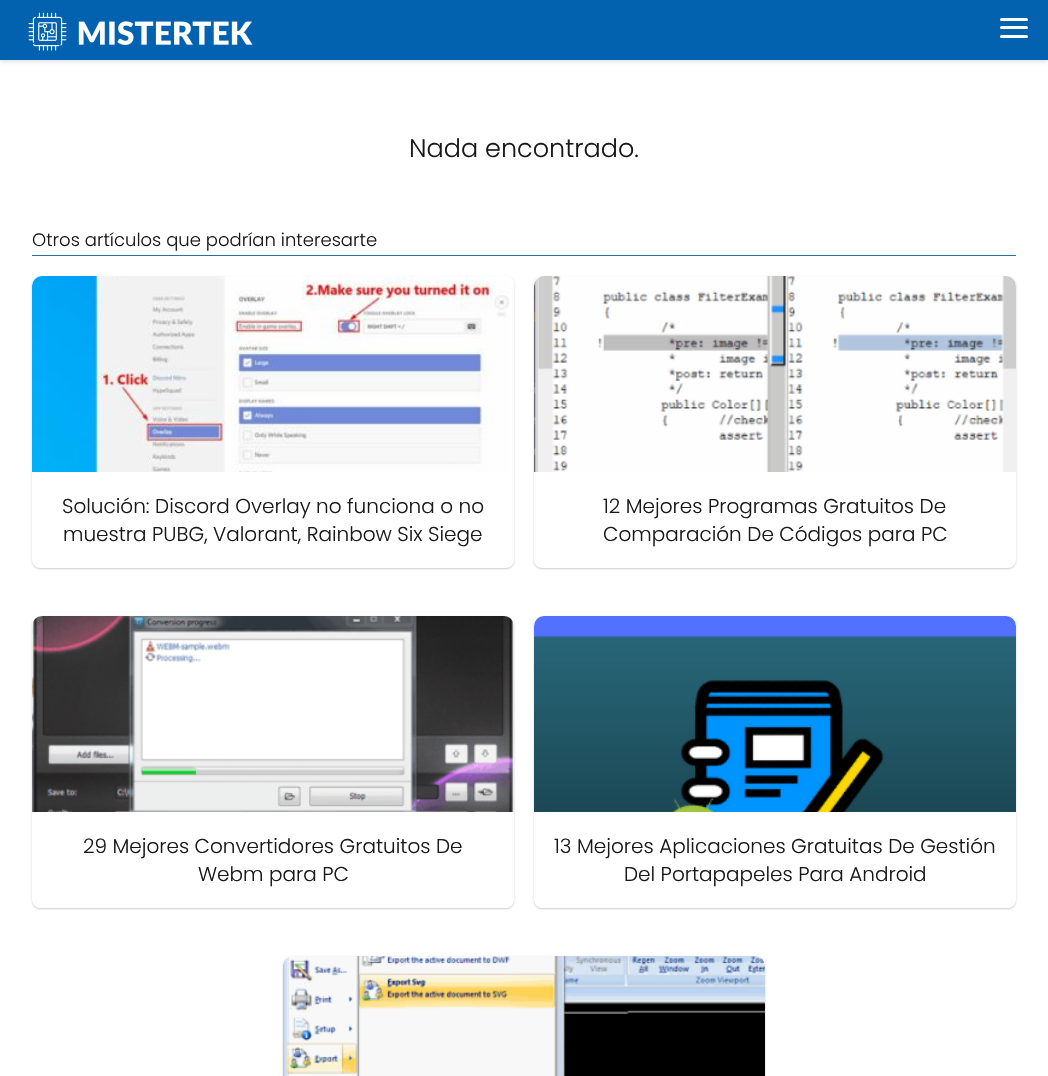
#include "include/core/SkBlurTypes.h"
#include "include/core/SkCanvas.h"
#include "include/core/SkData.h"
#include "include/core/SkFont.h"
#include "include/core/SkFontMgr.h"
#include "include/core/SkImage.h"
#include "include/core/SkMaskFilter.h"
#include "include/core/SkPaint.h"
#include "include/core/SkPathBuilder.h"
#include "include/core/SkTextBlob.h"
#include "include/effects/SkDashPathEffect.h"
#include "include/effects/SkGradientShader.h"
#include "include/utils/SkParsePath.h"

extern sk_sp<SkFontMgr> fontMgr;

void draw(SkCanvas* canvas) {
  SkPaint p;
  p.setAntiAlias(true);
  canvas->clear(SK_ColorWHITE);
  p.setColor(SkColorSetARGB(26, 0, 0, 0));
  p.setMaskFilter(SkMaskFilter::MakeBlur(kNormal_SkBlurStyle, 2));
  canvas->drawRect(SkRect::MakeLTRB(0, 2, 1048, 62), p);
  p.setMaskFilter(nullptr);
  p.setColor(SkColorSetRGB(2, 98, 175));
  canvas->drawRect(SkRect::MakeLTRB(0, 0, 1048, 60), p);
  canvas->drawImageRect(SkImages::DeferredFromEncodedData(SkData::MakeFromFileName("images/1.png")), SkRect::MakeLTRB(28, 12, 253, 51), SkSamplingOptions());
  p.setColor(SK_ColorWHITE);
  canvas->drawRoundRect(SkRect::MakeLTRB(1000, 18, 1028, 21), 1.5f, 1.5f, p);
  canvas->drawRoundRect(SkRect::MakeLTRB(1000, 26, 1028, 29), 1.5f, 1.5f, p);
  canvas->drawRoundRect(SkRect::MakeLTRB(1000, 35, 1028, 38), 1.5f, 1.5f, p);
  p.setColor(SkColorSetRGB(36, 113, 163));
  canvas->drawRect(SkRect::MakeLTRB(32, 255, 1016, 256), p);
  p.setColor(SkColorSetARGB(51, 0, 0, 0));
  p.setMaskFilter(SkMaskFilter::MakeBlur(kNormal_SkBlurStyle, 1));
  canvas->drawRoundRect(SkRect::MakeLTRB(32, 277, 514, 569), 8, 8, p);
  p.setMaskFilter(nullptr);
  p.setColor(SK_ColorWHITE);
  canvas->drawRoundRect(SkRect::MakeLTRB(32, 276, 514, 568), 8, 8, p);
  canvas->drawImageRect(SkImages::DeferredFromEncodedData(SkData::MakeFromFileName("images/2.png")), SkRect::MakeLTRB(32, 276, 510, 472), SkSamplingOptions());
  p.setColor(SkColorSetARGB(51, 0, 0, 0));
  p.setMaskFilter(SkMaskFilter::MakeBlur(kNormal_SkBlurStyle, 1));
  canvas->drawRoundRect(SkRect::MakeLTRB(534, 277, 1016, 569), 8, 8, p);
  p.setMaskFilter(nullptr);
  p.setColor(SK_ColorWHITE);
  canvas->drawRoundRect(SkRect::MakeLTRB(534, 276, 1016, 568), 8, 8, p);
  canvas->drawImageRect(SkImages::DeferredFromEncodedData(SkData::MakeFromFileName("images/3.png")), SkRect::MakeLTRB(534, 276, 1016, 472), SkSamplingOptions());
  p.setColor(SkColorSetARGB(51, 0, 0, 0));
  p.setMaskFilter(SkMaskFilter::MakeBlur(kNormal_SkBlurStyle, 1));
  canvas->drawRoundRect(SkRect::MakeLTRB(32, 617, 514, 909), 8, 8, p);
  p.setMaskFilter(nullptr);
  p.setColor(SK_ColorWHITE);
  canvas->drawRoundRect(SkRect::MakeLTRB(32, 616, 514, 908), 8, 8, p);
  canvas->drawImageRect(SkImages::DeferredFromEncodedData(SkData::MakeFromFileName("images/4.png")), SkRect::MakeLTRB(32, 616, 514, 812), SkSamplingOptions());
  p.setColor(SkColorSetARGB(51, 0, 0, 0));
  p.setMaskFilter(SkMaskFilter::MakeBlur(kNormal_SkBlurStyle, 1));
  canvas->drawRoundRect(SkRect::MakeLTRB(534, 617, 1016, 909), 8, 8, p);
  p.setMaskFilter(nullptr);
  p.setColor(SK_ColorWHITE);
  canvas->drawRoundRect(SkRect::MakeLTRB(534, 616, 1016, 908), 8, 8, p);
  canvas->drawImageRect(SkImages::DeferredFromEncodedData(SkData::MakeFromFileName("images/5.png")), SkRect::MakeLTRB(534, 616, 1016, 812), SkSamplingOptions());
  p.setColor(SkColorSetARGB(51, 0, 0, 0));
  p.setMaskFilter(SkMaskFilter::MakeBlur(kNormal_SkBlurStyle, 1));
  canvas->drawRoundRect(SkRect::MakeLTRB(283, 957, 765, 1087), 8, 8, p);
  p.setMaskFilter(nullptr);
  p.setColor(SK_ColorWHITE);
  canvas->drawRoundRect(SkRect::MakeLTRB(283, 956, 765, 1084), 8, 8, p);
  canvas->drawImageRect(SkImages::DeferredFromEncodedData(SkData::MakeFromFileName("images/6.png")), SkRect::MakeLTRB(283, 956, 765, 1076), SkSamplingOptions());
  SkFont font1(fontMgr->matchFamilyStyle("Poppins", SkFontStyle(300, SkFontStyle::kNormal_Width, SkFontStyle::kUpright_Slant)), 25.5f);
  font1.setSubpixel(true);
  p.setColor(SkColorSetRGB(24, 24, 24));
  canvas->drawString("Nada encontrado.", 409, 157, font1, p);
  SkFont font2(fontMgr->matchFamilyStyle("Poppins", SkFontStyle(300, SkFontStyle::kNormal_Width, SkFontStyle::kUpright_Slant)), 18);
  font2.setSubpixel(true);
  canvas->drawString("Otros artículos que podrían interesarte", 32, 246, font2, p);
  SkFont font3(fontMgr->matchFamilyStyle("Poppins", SkFontStyle(300, SkFontStyle::kNormal_Width, SkFontStyle::kUpright_Slant)), 20);
  font3.setSubpixel(true);
  canvas->drawString("Solución: Discord Overlay no funciona o no", 62, 513, font3, p);
  canvas->drawString("muestra PUBG, Valorant, Rainbow Six Siege", 63, 541, font3, p);
  canvas->drawString("12 Mejores Programas Gratuitos De", 603, 513, font3, p);
  canvas->drawString("Comparación De Códigos para PC", 603, 541, font3, p);
  canvas->drawString("29 Mejores Convertidores Gratuitos De", 83, 853, font3, p);
  canvas->drawString("Webm para PC", 198, 881, font3, p);
  canvas->drawString("13 Mejores Aplicaciones Gratuitas De Gestión", 554, 853, font3, p);
  canvas->drawString("Del Portapapeles Para Android", 624, 881, font3, p);
}
